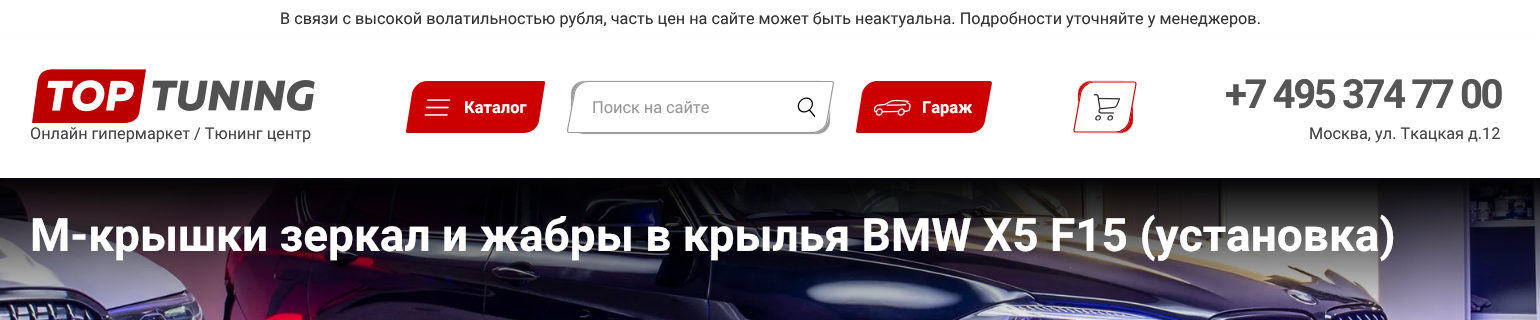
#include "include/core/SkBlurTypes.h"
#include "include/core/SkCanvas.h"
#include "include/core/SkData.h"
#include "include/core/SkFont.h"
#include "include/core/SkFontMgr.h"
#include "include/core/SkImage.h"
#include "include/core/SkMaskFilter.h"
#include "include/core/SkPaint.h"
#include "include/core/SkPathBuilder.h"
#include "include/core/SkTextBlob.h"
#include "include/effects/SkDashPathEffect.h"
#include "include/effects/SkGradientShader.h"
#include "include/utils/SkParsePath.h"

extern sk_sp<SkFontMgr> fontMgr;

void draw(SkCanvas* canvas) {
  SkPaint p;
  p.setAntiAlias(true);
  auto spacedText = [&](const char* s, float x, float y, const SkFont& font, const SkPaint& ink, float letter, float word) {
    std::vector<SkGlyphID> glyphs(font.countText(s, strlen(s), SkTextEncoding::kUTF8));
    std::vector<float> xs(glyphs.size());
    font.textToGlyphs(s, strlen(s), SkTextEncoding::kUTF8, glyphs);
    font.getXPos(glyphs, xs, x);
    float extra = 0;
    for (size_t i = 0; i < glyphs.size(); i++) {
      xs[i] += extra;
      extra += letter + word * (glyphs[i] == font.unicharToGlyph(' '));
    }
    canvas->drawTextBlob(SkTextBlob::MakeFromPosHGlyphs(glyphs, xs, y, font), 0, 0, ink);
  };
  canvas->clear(SK_ColorWHITE);
  canvas->drawImageRect(SkImages::DeferredFromEncodedData(SkData::MakeFromFileName("images/6.png")), SkRect::MakeLTRB(0, 178, 1540, 320), SkSamplingOptions());
  p.setColor(SkColorSetARGB(77, 0, 0, 0));
  p.setMaskFilter(SkMaskFilter::MakeBlur(kNormal_SkBlurStyle, 2));
  canvas->drawRect(SkRect::MakeLTRB(1, 40, 1539, 178), p);
  p.setMaskFilter(nullptr);
  p.setColor(SkColorSetARGB(64, 50, 50, 93));
  p.setMaskFilter(SkMaskFilter::MakeBlur(kNormal_SkBlurStyle, 3));
  canvas->drawRect(SkRect::MakeLTRB(1, 41, 1539, 179), p);
  p.setMaskFilter(nullptr);
  p.setColor(SK_ColorWHITE);
  canvas->drawRect(SkRect::MakeLTRB(0, 36, 1540, 178), p);
  p.setColor(SkColorSetRGB(204, 0, 0));
  canvas->drawPath(SkPathBuilder().moveTo(427, 81).lineTo(543, 81).cubicTo(545, 81, 546, 82, 545, 83).lineTo(539, 121).cubicTo(538, 128, 531, 133, 524, 133).lineTo(408, 133).cubicTo(406, 133, 406, 132, 406, 131).lineTo(412, 93).cubicTo(414, 86, 420, 81, 427, 81).close().detach(), p);
  canvas->drawImageRect(SkImages::DeferredFromEncodedData(SkData::MakeFromFileName("images/1.png")), SkRect::MakeLTRB(424, 99, 451, 116), SkSamplingOptions());
  p.setColor(SkColorSetRGB(153, 153, 153));
  p.setMaskFilter(SkMaskFilter::MakeBlur(kNormal_SkBlurStyle, 0.5f));
  canvas->drawRoundRect(SkRect::MakeLTRB(571, 81, 830, 134), 13, 13, p);
  p.setMaskFilter(nullptr);
  p.setColor(SK_ColorWHITE);
  canvas->drawPath(SkPathBuilder().moveTo(588, 81).lineTo(832, 81).cubicTo(834, 81, 834, 82, 834, 83).lineTo(828, 121).cubicTo(826, 128, 820, 133, 813, 133).lineTo(569, 133).cubicTo(568, 133, 567, 132, 567, 131).lineTo(574, 93).cubicTo(575, 86, 581, 81, 588, 81).close().detach(), p);
  p.setStyle(SkPaint::kStroke_Style);
  p.setStrokeWidth(1.2f);
  p.setColor(SkColorSetRGB(153, 153, 153));
  canvas->drawPath(SkPathBuilder().moveTo(588.5f, 81.5f).lineTo(832, 81.5f).cubicTo(833, 81.5f, 833.5f, 82, 833.5f, 83).lineTo(827, 120.5f).cubicTo(826, 127.5f, 819.5f, 132.5f, 813, 132.5f).lineTo(569, 132.5f).cubicTo(568, 132.5f, 567.5f, 131.5f, 567.5f, 130.5f).lineTo(574.5f, 93).cubicTo(575.5f, 86.5f, 581.5f, 81.5f, 588.5f, 81.5f).close().detach(), p);
  canvas->drawImageRect(SkImages::DeferredFromEncodedData(SkData::MakeFromFileName("images/2.png")), SkRect::MakeLTRB(797, 97, 816, 117), SkSamplingOptions());
  p.setStyle(SkPaint::kFill_Style);
  p.setColor(SkColorSetRGB(204, 0, 0));
  canvas->drawPath(SkPathBuilder().moveTo(877, 81).lineTo(990, 81).cubicTo(991, 81, 992, 82, 992, 83).lineTo(985, 121).cubicTo(984, 128, 977, 133, 970, 133).lineTo(858, 133).cubicTo(856, 133, 856, 132, 856, 131).lineTo(862, 93).cubicTo(864, 86, 870, 81, 877, 81).close().detach(), p);
  canvas->drawImageRect(SkImages::DeferredFromEncodedData(SkData::MakeFromFileName("images/3.png")), SkRect::MakeLTRB(873, 99, 911, 116), SkSamplingOptions());
  p.setMaskFilter(SkMaskFilter::MakeBlur(kNormal_SkBlurStyle, 0.5f));
  canvas->drawRoundRect(SkRect::MakeLTRB(1078, 81, 1133, 133), 13, 13, p);
  p.setMaskFilter(nullptr);
  p.setColor(SK_ColorWHITE);
  canvas->drawPath(SkPathBuilder().moveTo(1095, 81).lineTo(1135, 81).cubicTo(1136, 81, 1137, 82, 1137, 84).lineTo(1130, 120).cubicTo(1129, 127, 1122, 133, 1115, 133).lineTo(1075, 133).cubicTo(1074, 133, 1073, 131, 1073, 130).lineTo(1080, 94).cubicTo(1081, 87, 1088, 81, 1095, 81).close().detach(), p);
  p.setStyle(SkPaint::kStroke_Style);
  p.setColor(SkColorSetRGB(204, 0, 0));
  canvas->drawPath(SkPathBuilder().moveTo(1094.5f, 82).lineTo(1134.5f, 82).cubicTo(1135.5f, 82, 1136, 83, 1136, 84).lineTo(1129.5f, 120).cubicTo(1128.5f, 126.5f, 1122, 132, 1115.5f, 132).lineTo(1075.5f, 132).cubicTo(1074.5f, 132, 1074, 131, 1074, 130).lineTo(1080.5f, 94).cubicTo(1081.5f, 87.5f, 1088, 82, 1094.5f, 82).close().detach(), p);
  canvas->drawImageRect(SkImages::DeferredFromEncodedData(SkData::MakeFromFileName("images/4.png")), SkRect::MakeLTRB(1093, 94, 1120, 121), SkSamplingOptions());
  canvas->drawImageRect(SkImages::DeferredFromEncodedData(SkData::MakeFromFileName("images/5.png")), SkRect::MakeLTRB(32, 69, 315, 123), SkSamplingOptions());
  SkFont font1(fontMgr->matchFamilyStyle("Roboto", SkFontStyle::Normal()), 16.25f);
  font1.setSubpixel(true);
  p.setStyle(SkPaint::kFill_Style);
  p.setColor(SkColorSetRGB(51, 51, 51));
  canvas->drawString("В связи с высокой волатильностью рубля, часть цен на сайте может быть неактуальна. Подробности уточняйте у менеджеров.", 280, 24, font1, p);
  SkFont font2(fontMgr->matchFamilyStyle("Roboto", SkFontStyle::Bold()), 16.5f);
  font2.setSubpixel(true);
  p.setColor(SK_ColorWHITE);
  canvas->drawString("Каталог", 464, 113, font2, p);
  canvas->save();
  canvas->clipPath(SkPathBuilder().moveTo(594, 97.5f).lineTo(808, 97.5f).lineTo(804.5f, 116.5f).lineTo(591, 116.5f).close().detach(), true);
  SkFont font3(fontMgr->matchFamilyStyle("Roboto", SkFontStyle::Normal()), 16.5f);
  font3.setSubpixel(true);
  p.setColor(SkColorSetRGB(153, 153, 153));
  spacedText("Поиск на сайте", 592, 113, font3, p, -0.1f, 0);
  canvas->restore();
  p.setColor(SK_ColorWHITE);
  canvas->drawString("Гараж", 922, 113, font2, p);
  SkFont font4(fontMgr->matchFamilyStyle("Roboto", SkFontStyle::Bold()), 40.25f);
  font4.setSubpixel(true);
  p.setColor(SkColorSetRGB(85, 85, 85));
  spacedText("+7 495 374 77 00", 1225, 108, font4, p, -2.5f, 0);
  p.setColor(SkColorSetRGB(68, 68, 68));
  canvas->drawString("Москва, ул. Ткацкая д.12", 1309, 139, font1, p);
  canvas->drawString("Онлайн гипермаркет / Тюнинг центр", 30, 139, font1, p);
  SkFont font5(fontMgr->matchFamilyStyle("Roboto", SkFontStyle::Bold()), 46);
  font5.setSubpixel(true);
  p.setColor(SK_ColorWHITE);
  canvas->drawString("М-крышки зеркал и жабры в крылья BMW X5 F15 (установка)", 30, 251, font5, p);
}
